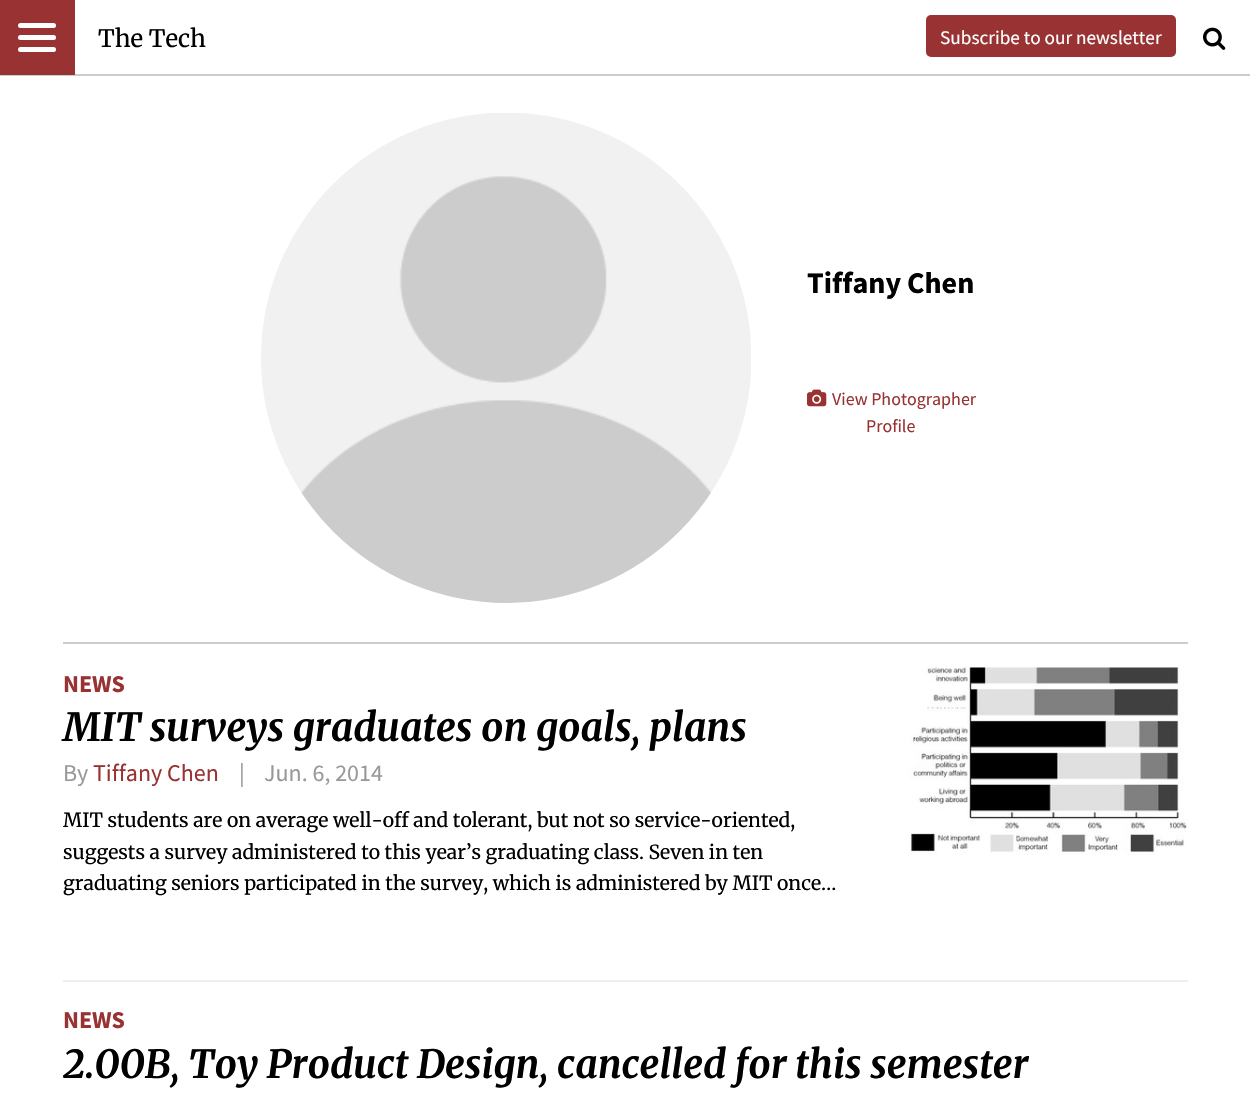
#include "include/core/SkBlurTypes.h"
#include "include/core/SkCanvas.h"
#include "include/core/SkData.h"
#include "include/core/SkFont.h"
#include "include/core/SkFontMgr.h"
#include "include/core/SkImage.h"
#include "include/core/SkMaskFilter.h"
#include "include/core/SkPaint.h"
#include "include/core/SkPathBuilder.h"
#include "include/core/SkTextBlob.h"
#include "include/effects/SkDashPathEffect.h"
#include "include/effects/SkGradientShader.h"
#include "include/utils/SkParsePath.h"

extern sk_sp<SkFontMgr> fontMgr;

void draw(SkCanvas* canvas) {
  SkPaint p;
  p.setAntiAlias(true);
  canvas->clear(SK_ColorWHITE);
  p.setColor(SkColorSetRGB(204, 204, 204));
  canvas->drawRect(SkRect::MakeLTRB(0, 74, 1250, 76), p);
  p.setColor(SkColorSetRGB(153, 51, 51));
  canvas->drawRect(SkRect::MakeLTRB(0, 0, 75, 75), p);
  p.setColor(SK_ColorWHITE);
  canvas->drawRoundRect(SkRect::MakeLTRB(18, 23, 56, 28), 2.5f, 2.5f, p);
  canvas->drawRoundRect(SkRect::MakeLTRB(18, 35, 56, 40), 2.5f, 2.5f, p);
  canvas->drawRoundRect(SkRect::MakeLTRB(18, 47, 56, 52), 2.5f, 2.5f, p);
  p.setColor(SkColorSetRGB(153, 51, 51));
  canvas->drawRoundRect(SkRect::MakeLTRB(926, 15, 1176, 57), 5, 5, p);
  canvas->drawImageRect(SkImages::DeferredFromEncodedData(SkData::MakeFromFileName("images/1.png")), SkRect::MakeLTRB(1203, 27, 1226, 50), SkSamplingOptions());
  canvas->drawImageRect(SkImages::DeferredFromEncodedData(SkData::MakeFromFileName("images/2.png")), SkRect::MakeLTRB(261, 113, 751, 603), SkSamplingOptions());
  canvas->drawImageRect(SkImages::DeferredFromEncodedData(SkData::MakeFromFileName("images/3.png")), SkRect::MakeLTRB(807, 389, 827, 407), SkSamplingOptions());
  p.setColor(SkColorSetRGB(204, 204, 204));
  canvas->drawRect(SkRect::MakeLTRB(63, 642, 1188, 644), p);
  canvas->drawImageRect(SkImages::DeferredFromEncodedData(SkData::MakeFromFileName("images/4.png")), SkRect::MakeLTRB(909, 667, 1188, 855), SkSamplingOptions());
  p.setColor(SkColorSetRGB(238, 238, 238));
  canvas->drawRect(SkRect::MakeLTRB(63, 980, 1188, 982), p);
  SkFont font1(fontMgr->matchFamilyStyle("Merriweather", SkFontStyle::Normal()), 24);
  font1.setSubpixel(true);
  p.setColor(SK_ColorBLACK);
  canvas->drawString("The Tech", 98, 47, font1, p);
  SkFont font2(fontMgr->matchFamilyStyle("Source Sans Pro", SkFontStyle::Normal()), 19.25f);
  font2.setSubpixel(true);
  p.setColor(SK_ColorWHITE);
  canvas->drawString("Subscribe to our newsletter", 940, 44, font2, p);
  SkFont font3(fontMgr->matchFamilyStyle("Source Sans Pro", SkFontStyle::Bold()), 30);
  font3.setSubpixel(true);
  p.setColor(SK_ColorBLACK);
  canvas->drawString("Tiffany Chen", 807, 293, font3, p);
  SkFont font4(fontMgr->matchFamilyStyle("Source Sans Pro", SkFontStyle::Normal()), 18);
  font4.setSubpixel(true);
  p.setColor(SkColorSetRGB(153, 51, 51));
  canvas->drawString("View Photographer", 832, 405, font4, p);
  canvas->drawString("Profile", 866, 432, font4, p);
  SkFont font5(fontMgr->matchFamilyStyle("Source Sans Pro", SkFontStyle::Bold()), 24);
  font5.setSubpixel(true);
  canvas->drawString("NEWS", 63, 692, font5, p);
  SkFont font6(fontMgr->matchFamilyStyle("Merriweather", SkFontStyle::BoldItalic()), 38.8f);
  font6.setSubpixel(true);
  p.setColor(SK_ColorBLACK);
  canvas->drawString("MIT surveys graduates on goals, plans", 63, 741, font6, p);
  SkFont font7(fontMgr->matchFamilyStyle("Source Sans Pro", SkFontStyle::Normal()), 24);
  font7.setSubpixel(true);
  p.setColor(SkColorSetRGB(153, 153, 153));
  canvas->drawString("By", 63, 781, font7, p);
  p.setColor(SkColorSetRGB(153, 51, 51));
  canvas->drawString("Tiffany Chen", 93, 781, font7, p);
  p.setColor(SkColorSetRGB(153, 153, 153));
  canvas->drawString("|", 239, 781, font7, p);
  canvas->drawString("Jun. 6, 2014", 264, 781, font7, p);
  SkFont font8(fontMgr->matchFamilyStyle("Merriweather", SkFontStyle::Normal()), 19.4f);
  font8.setSubpixel(true);
  p.setColor(SK_ColorBLACK);
  canvas->drawString("MIT students are on average well-off and tolerant, but not so service-oriented,", 63, 827, font8, p);
  canvas->drawString("suggests a survey administered to this year’s graduating class. Seven in ten", 63, 859, font8, p);
  canvas->drawString("graduating seniors participated in the survey, which is administered by MIT once…", 63, 890, font8, p);
  p.setColor(SkColorSetRGB(153, 51, 51));
  canvas->drawString("NEWS", 63, 1028, font5, p);
  p.setColor(SK_ColorBLACK);
  canvas->drawString("2.00B, Toy Product Design, cancelled for this semester", 63, 1078, font6, p);
}
